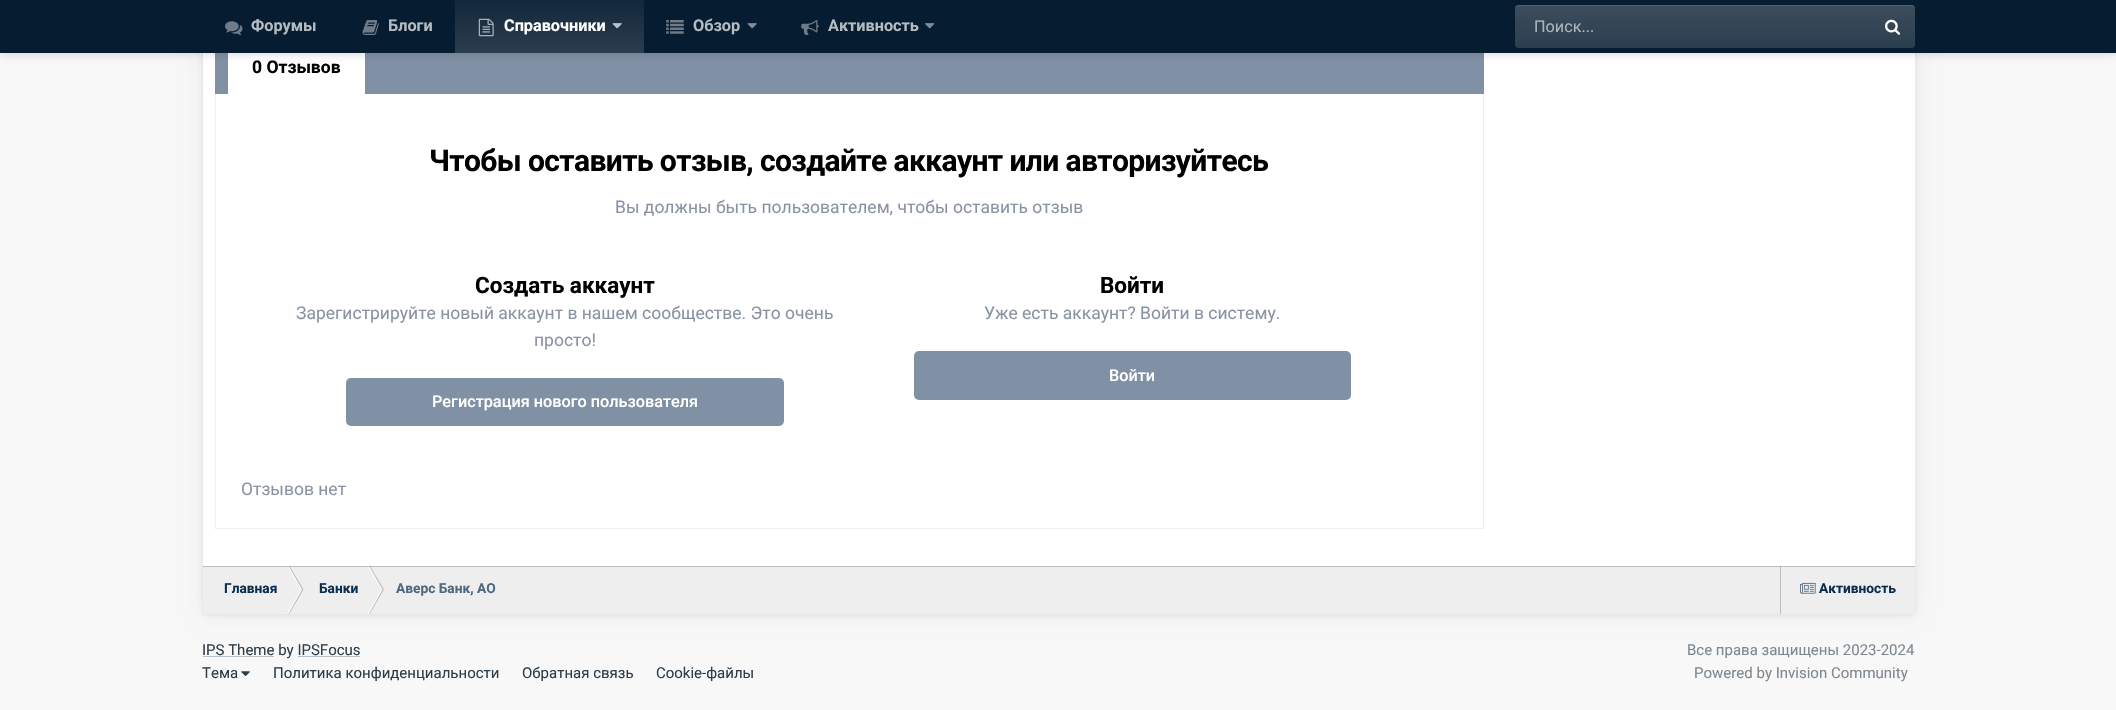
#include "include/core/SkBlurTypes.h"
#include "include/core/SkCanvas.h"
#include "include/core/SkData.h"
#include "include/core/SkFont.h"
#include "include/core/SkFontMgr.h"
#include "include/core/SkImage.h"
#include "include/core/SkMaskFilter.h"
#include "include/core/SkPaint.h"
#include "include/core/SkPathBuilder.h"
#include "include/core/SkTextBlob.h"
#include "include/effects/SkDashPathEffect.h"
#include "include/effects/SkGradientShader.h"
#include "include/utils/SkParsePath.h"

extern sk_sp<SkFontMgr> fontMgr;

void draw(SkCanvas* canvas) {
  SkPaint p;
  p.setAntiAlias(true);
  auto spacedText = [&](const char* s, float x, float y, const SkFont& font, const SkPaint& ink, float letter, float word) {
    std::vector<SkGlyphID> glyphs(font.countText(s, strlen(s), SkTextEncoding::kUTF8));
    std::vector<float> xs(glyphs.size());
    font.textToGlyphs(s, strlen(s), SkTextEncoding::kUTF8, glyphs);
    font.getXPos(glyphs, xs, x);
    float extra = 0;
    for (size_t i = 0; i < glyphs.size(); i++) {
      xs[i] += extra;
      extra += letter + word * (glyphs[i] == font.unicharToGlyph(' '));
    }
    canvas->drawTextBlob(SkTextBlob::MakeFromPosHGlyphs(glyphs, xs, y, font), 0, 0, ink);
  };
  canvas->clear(SkColorSetRGB(248, 248, 248));
  p.setColor(SkColorSetARGB(20, 0, 0, 0));
  p.setMaskFilter(SkMaskFilter::MakeBlur(kNormal_SkBlurStyle, 2));
  canvas->drawRoundRect(SkRect::MakeLTRB(203, -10, 1915, 615), 4, 4, p);
  p.setMaskFilter(nullptr);
  p.setColor(SkColorSetARGB(15, 0, 0, 0));
  p.setMaskFilter(SkMaskFilter::MakeBlur(kNormal_SkBlurStyle, 12.5f));
  canvas->drawRoundRect(SkRect::MakeLTRB(203, -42, 1915, 614), 4, 4, p);
  p.setMaskFilter(nullptr);
  p.setColor(SK_ColorWHITE);
  canvas->drawPath(SkPathBuilder().moveTo(203, -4).lineTo(1915, -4).lineTo(1915, 610).cubicTo(1915, 612, 1913, 614, 1911, 614).lineTo(207, 614).cubicTo(205, 614, 203, 612, 203, 610).close().detach(), p);
  p.setColor(SkColorSetRGB(129, 145, 165));
  canvas->drawRect(SkRect::MakeLTRB(215, 53, 1484, 94), p);
  p.setColor(SK_ColorWHITE);
  canvas->drawRect(SkRect::MakeLTRB(228, 53, 365, 94), p);
  p.setColor(SkColorSetARGB(38, 0, 0, 0));
  p.setMaskFilter(SkMaskFilter::MakeBlur(kNormal_SkBlurStyle, 4.5f));
  canvas->drawRect(SkRect::MakeLTRB(0, 1, 2116, 54), p);
  p.setMaskFilter(nullptr);
  p.setColor(SkColorSetRGB(6, 28, 48));
  canvas->drawRect(SkRect::MakeLTRB(0, 0, 2116, 53), p);
  canvas->drawImageRect(SkImages::DeferredFromEncodedData(SkData::MakeFromFileName("images/1.png")), SkRect::MakeLTRB(225, 21, 243, 35), SkSamplingOptions());
  canvas->drawImageRect(SkImages::DeferredFromEncodedData(SkData::MakeFromFileName("images/2.png")), SkRect::MakeLTRB(362, 20, 379, 35), SkSamplingOptions());
  {
    const SkColor colors[] = {SkColorSetRGB(18, 39, 58), SkColorSetRGB(43, 62, 79)};
    const float stops[] = {0, 1};
    const SkPoint ends[] = {{549, 0}, {549, 53}};
    p.setShader(SkGradientShader::MakeLinear(ends, colors, stops, 2, SkTileMode::kClamp));
    p.setAlpha(255);
  }
  canvas->drawRect(SkRect::MakeLTRB(455, 0, 644, 53), p);
  canvas->drawImageRect(SkImages::DeferredFromEncodedData(SkData::MakeFromFileName("images/3.png")), SkRect::MakeLTRB(478, 18, 494, 37), SkSamplingOptions());
  canvas->drawImageRect(SkImages::DeferredFromEncodedData(SkData::MakeFromFileName("images/4.png")), SkRect::MakeLTRB(612, 23, 622, 29), SkSamplingOptions());
  canvas->drawImageRect(SkImages::DeferredFromEncodedData(SkData::MakeFromFileName("images/5.png")), SkRect::MakeLTRB(666, 20, 684, 34), SkSamplingOptions());
  canvas->drawImageRect(SkImages::DeferredFromEncodedData(SkData::MakeFromFileName("images/6.png")), SkRect::MakeLTRB(747, 23, 757, 29), SkSamplingOptions());
  canvas->drawImageRect(SkImages::DeferredFromEncodedData(SkData::MakeFromFileName("images/7.png")), SkRect::MakeLTRB(801, 20, 819, 35), SkSamplingOptions());
  canvas->drawImageRect(SkImages::DeferredFromEncodedData(SkData::MakeFromFileName("images/8.png")), SkRect::MakeLTRB(925, 23, 935, 29), SkSamplingOptions());
  p.setShader(nullptr);
  p.setColor(SkColorSetRGB(43, 62, 79));
  canvas->drawRoundRect(SkRect::MakeLTRB(1515, 5, 1915, 48), 4, 4, p);
  {
    const SkColor colors[] = {SkColorSetARGB(20, 255, 255, 255), SkColorSetARGB(0, 255, 255, 255)};
    const float stops[] = {0, 1};
    const SkPoint ends[] = {{1715, 5}, {1715, 48}};
    p.setShader(SkGradientShader::MakeLinear(ends, colors, stops, 2, SkTileMode::kClamp));
    p.setAlpha(255);
  }
  canvas->drawRoundRect(SkRect::MakeLTRB(1515, 5, 1915, 48), 4, 4, p);
  p.setShader(nullptr);
  p.setColor(SkColorSetARGB(26, 255, 255, 255));
  canvas->drawPath(SkPathBuilder().moveTo(1519, 6).lineTo(1911, 6).cubicTo(1913, 6, 1915, 8, 1915, 10).cubicTo(1915, 7, 1914, 5, 1911, 5).lineTo(1519, 5).cubicTo(1516, 5, 1515, 7, 1515, 10).cubicTo(1515, 8, 1517, 6, 1519, 6).close().detach(), p);
  canvas->drawImageRect(SkImages::DeferredFromEncodedData(SkData::MakeFromFileName("images/9.png")), SkRect::MakeLTRB(1885, 19, 1901, 35), SkSamplingOptions());
  p.setColor(SkColorSetRGB(238, 238, 238));
  canvas->drawRect(SkRect::MakeLTRB(1483, 94, 1484, 529), p);
  canvas->drawRect(SkRect::MakeLTRB(215, 528, 1484, 529), p);
  canvas->drawRect(SkRect::MakeLTRB(215, 94, 216, 529), p);
  p.setColor(SkColorSetRGB(129, 145, 165));
  canvas->drawRoundRect(SkRect::MakeLTRB(346, 378, 784, 426), 5, 5, p);
  canvas->drawRoundRect(SkRect::MakeLTRB(914, 351, 1351, 400), 5, 5, p);
  p.setColor(SkColorSetRGB(238, 238, 238));
  canvas->drawPath(SkPathBuilder().moveTo(203, 566).lineTo(1915, 566).lineTo(1915, 610).cubicTo(1915, 612, 1913, 614, 1911, 614).lineTo(207, 614).cubicTo(205, 614, 203, 612, 203, 610).close().detach(), p);
  p.setColor(SK_ColorWHITE);
  canvas->drawPath(SkPathBuilder().moveTo(287, 566).lineTo(288.5f, 566).lineTo(302, 589.5f).lineTo(301, 589.5f).close().detach(), p);
  p.setColor(SkColorSetARGB(51, 0, 0, 0));
  canvas->drawPath(SkPathBuilder().moveTo(288.5f, 566).lineTo(289.5f, 566).lineTo(303.5f, 589.5f).lineTo(302, 589.5f).close().detach(), p);
  p.setColor(SK_ColorWHITE);
  canvas->drawPath(SkPathBuilder().moveTo(367.5f, 566).lineTo(369, 566).lineTo(382.5f, 589.5f).lineTo(381.5f, 589.5f).close().detach(), p);
  p.setColor(SkColorSetARGB(51, 0, 0, 0));
  canvas->drawPath(SkPathBuilder().moveTo(369, 566).lineTo(370, 566).lineTo(384, 589.5f).lineTo(382.5f, 589.5f).close().detach(), p);
  p.setColor(SkColorSetRGB(190, 190, 190));
  canvas->drawRect(SkRect::MakeLTRB(1780, 566, 1781, 614), p);
  p.setColor(SkColorSetARGB(51, 0, 0, 0));
  canvas->drawRect(SkRect::MakeLTRB(203, 566, 1915, 567), p);
  p.setColor(SK_ColorWHITE);
  canvas->drawPath(SkPathBuilder().moveTo(287, 613.5f).lineTo(288.5f, 613.5f).lineTo(302, 589.5f).lineTo(301, 589.5f).close().detach(), p);
  p.setColor(SkColorSetARGB(51, 0, 0, 0));
  canvas->drawPath(SkPathBuilder().moveTo(288.5f, 613.5f).lineTo(289.5f, 613.5f).lineTo(303.5f, 589.5f).lineTo(302, 589.5f).close().detach(), p);
  p.setColor(SK_ColorWHITE);
  canvas->drawPath(SkPathBuilder().moveTo(367.5f, 613.5f).lineTo(369, 613.5f).lineTo(382.5f, 589.5f).lineTo(381.5f, 589.5f).close().detach(), p);
  p.setColor(SkColorSetARGB(51, 0, 0, 0));
  canvas->drawPath(SkPathBuilder().moveTo(369, 613.5f).lineTo(370, 613.5f).lineTo(384, 589.5f).lineTo(382.5f, 589.5f).close().detach(), p);
  canvas->drawImageRect(SkImages::DeferredFromEncodedData(SkData::MakeFromFileName("images/10.png")), SkRect::MakeLTRB(1800, 582, 1816, 594), SkSamplingOptions());
  p.setColor(SkColorSetRGB(187, 192, 196));
  canvas->drawRect(SkRect::MakeLTRB(203, 656, 274, 657), p);
  canvas->drawImageRect(SkImages::DeferredFromEncodedData(SkData::MakeFromFileName("images/11.png")), SkRect::MakeLTRB(241, 671, 250, 676), SkSamplingOptions());
  SkFont font1(fontMgr->matchFamilyStyle("Roboto", SkFontStyle::Bold()), 16.25f);
  font1.setSubpixel(true);
  p.setColor(SkColorSetRGB(180, 187, 193));
  canvas->drawString("Форумы", 251, 31, font1, p);
  canvas->drawString("Блоги", 388, 31, font1, p);
  p.setColor(SK_ColorWHITE);
  canvas->drawString("Справочники", 504, 31, font1, p);
  p.setColor(SkColorSetRGB(180, 187, 193));
  canvas->drawString("Обзор", 693, 31, font1, p);
  canvas->drawString("Активность", 828, 31, font1, p);
  SkFont font2(fontMgr->matchFamilyStyle("Roboto", SkFontStyle::Normal()), 16.25f);
  font2.setSubpixel(true);
  p.setColor(SkColorSetRGB(173, 181, 187));
  canvas->drawString("Поиск...", 1534, 32, font2, p);
  SkFont font3(fontMgr->matchFamilyStyle("Roboto", SkFontStyle::Bold()), 17.5f);
  font3.setSubpixel(true);
  p.setColor(SK_ColorBLACK);
  canvas->drawString("0 Отзывов", 252, 73, font3, p);
  SkFont font4(fontMgr->matchFamilyStyle("Roboto", SkFontStyle::Bold()), 30);
  font4.setSubpixel(true);
  spacedText("Чтобы оставить отзыв, создайте аккаунт или авторизуйтесь", 429, 171, font4, p, -0.6f, 0);
  SkFont font5(fontMgr->matchFamilyStyle("Roboto", SkFontStyle::Normal()), 17.5f);
  font5.setSubpixel(true);
  p.setColor(SkColorSetRGB(138, 147, 164));
  canvas->drawString("Вы должны быть пользователем, чтобы оставить отзыв", 615, 213, font5, p);
  SkFont font6(fontMgr->matchFamilyStyle("Roboto", SkFontStyle::Bold()), 22.5f);
  font6.setSubpixel(true);
  p.setColor(SK_ColorBLACK);
  canvas->drawString("Создать аккаунт", 475, 293, font6, p);
  p.setColor(SkColorSetRGB(138, 147, 164));
  canvas->drawString("Зарегистрируйте новый аккаунт в нашем сообществе. Это очень", 296, 319, font5, p);
  canvas->drawString("просто!", 534, 346, font5, p);
  SkFont font7(fontMgr->matchFamilyStyle("Roboto", SkFontStyle(500, SkFontStyle::kNormal_Width, SkFontStyle::kUpright_Slant)), 16.25f);
  font7.setSubpixel(true);
  p.setColor(SK_ColorWHITE);
  canvas->drawString("Регистрация нового пользователя", 432, 407, font7, p);
  p.setColor(SK_ColorBLACK);
  canvas->drawString("Войти", 1100, 293, font6, p);
  p.setColor(SkColorSetRGB(138, 147, 164));
  canvas->drawString("Уже есть аккаунт? Войти в систему.", 984, 319, font5, p);
  p.setColor(SK_ColorWHITE);
  canvas->drawString("Войти", 1109, 381, font7, p);
  p.setColor(SkColorSetRGB(138, 147, 164));
  canvas->drawString("Отзывов нет", 241, 495, font5, p);
  SkFont font8(fontMgr->matchFamilyStyle("Roboto", SkFontStyle::Bold()), 13.75f);
  font8.setSubpixel(true);
  p.setColor(SkColorSetRGB(10, 46, 80));
  canvas->drawString("Главная", 224, 593, font8, p);
  canvas->drawString("Банки", 319, 593, font8, p);
  p.setColor(SkColorSetRGB(78, 104, 127));
  canvas->drawString("Аверс Банк, АО", 396, 593, font8, p);
  p.setColor(SkColorSetRGB(10, 46, 80));
  canvas->drawString("Активность", 1819, 593, font8, p);
  SkFont font9(fontMgr->matchFamilyStyle("Roboto", SkFontStyle::Normal()), 15);
  font9.setSubpixel(true);
  p.setColor(SkColorSetRGB(46, 61, 74));
  canvas->drawString("IPS Theme by IPSFocus", 202, 655, font9, p);
  p.setColor(SkColorSetRGB(187, 192, 196));
  canvas->drawRect(SkRect::MakeLTRB(298, 656, 360, 657), p);
  p.setColor(SkColorSetRGB(46, 61, 74));
  canvas->drawString("Тема", 202, 678, font9, p);
  canvas->drawString("Политика конфиденциальности", 273, 678, font9, p);
  canvas->drawString("Обратная связь", 522, 678, font9, p);
  canvas->drawString("Cookie-файлы", 656, 678, font9, p);
  p.setColor(SkColorSetRGB(127, 136, 144));
  canvas->drawString("Все права защищены 2023-2024", 1687, 655, font9, p);
  canvas->drawString("Powered by Invision Community", 1694, 678, font9, p);
}
